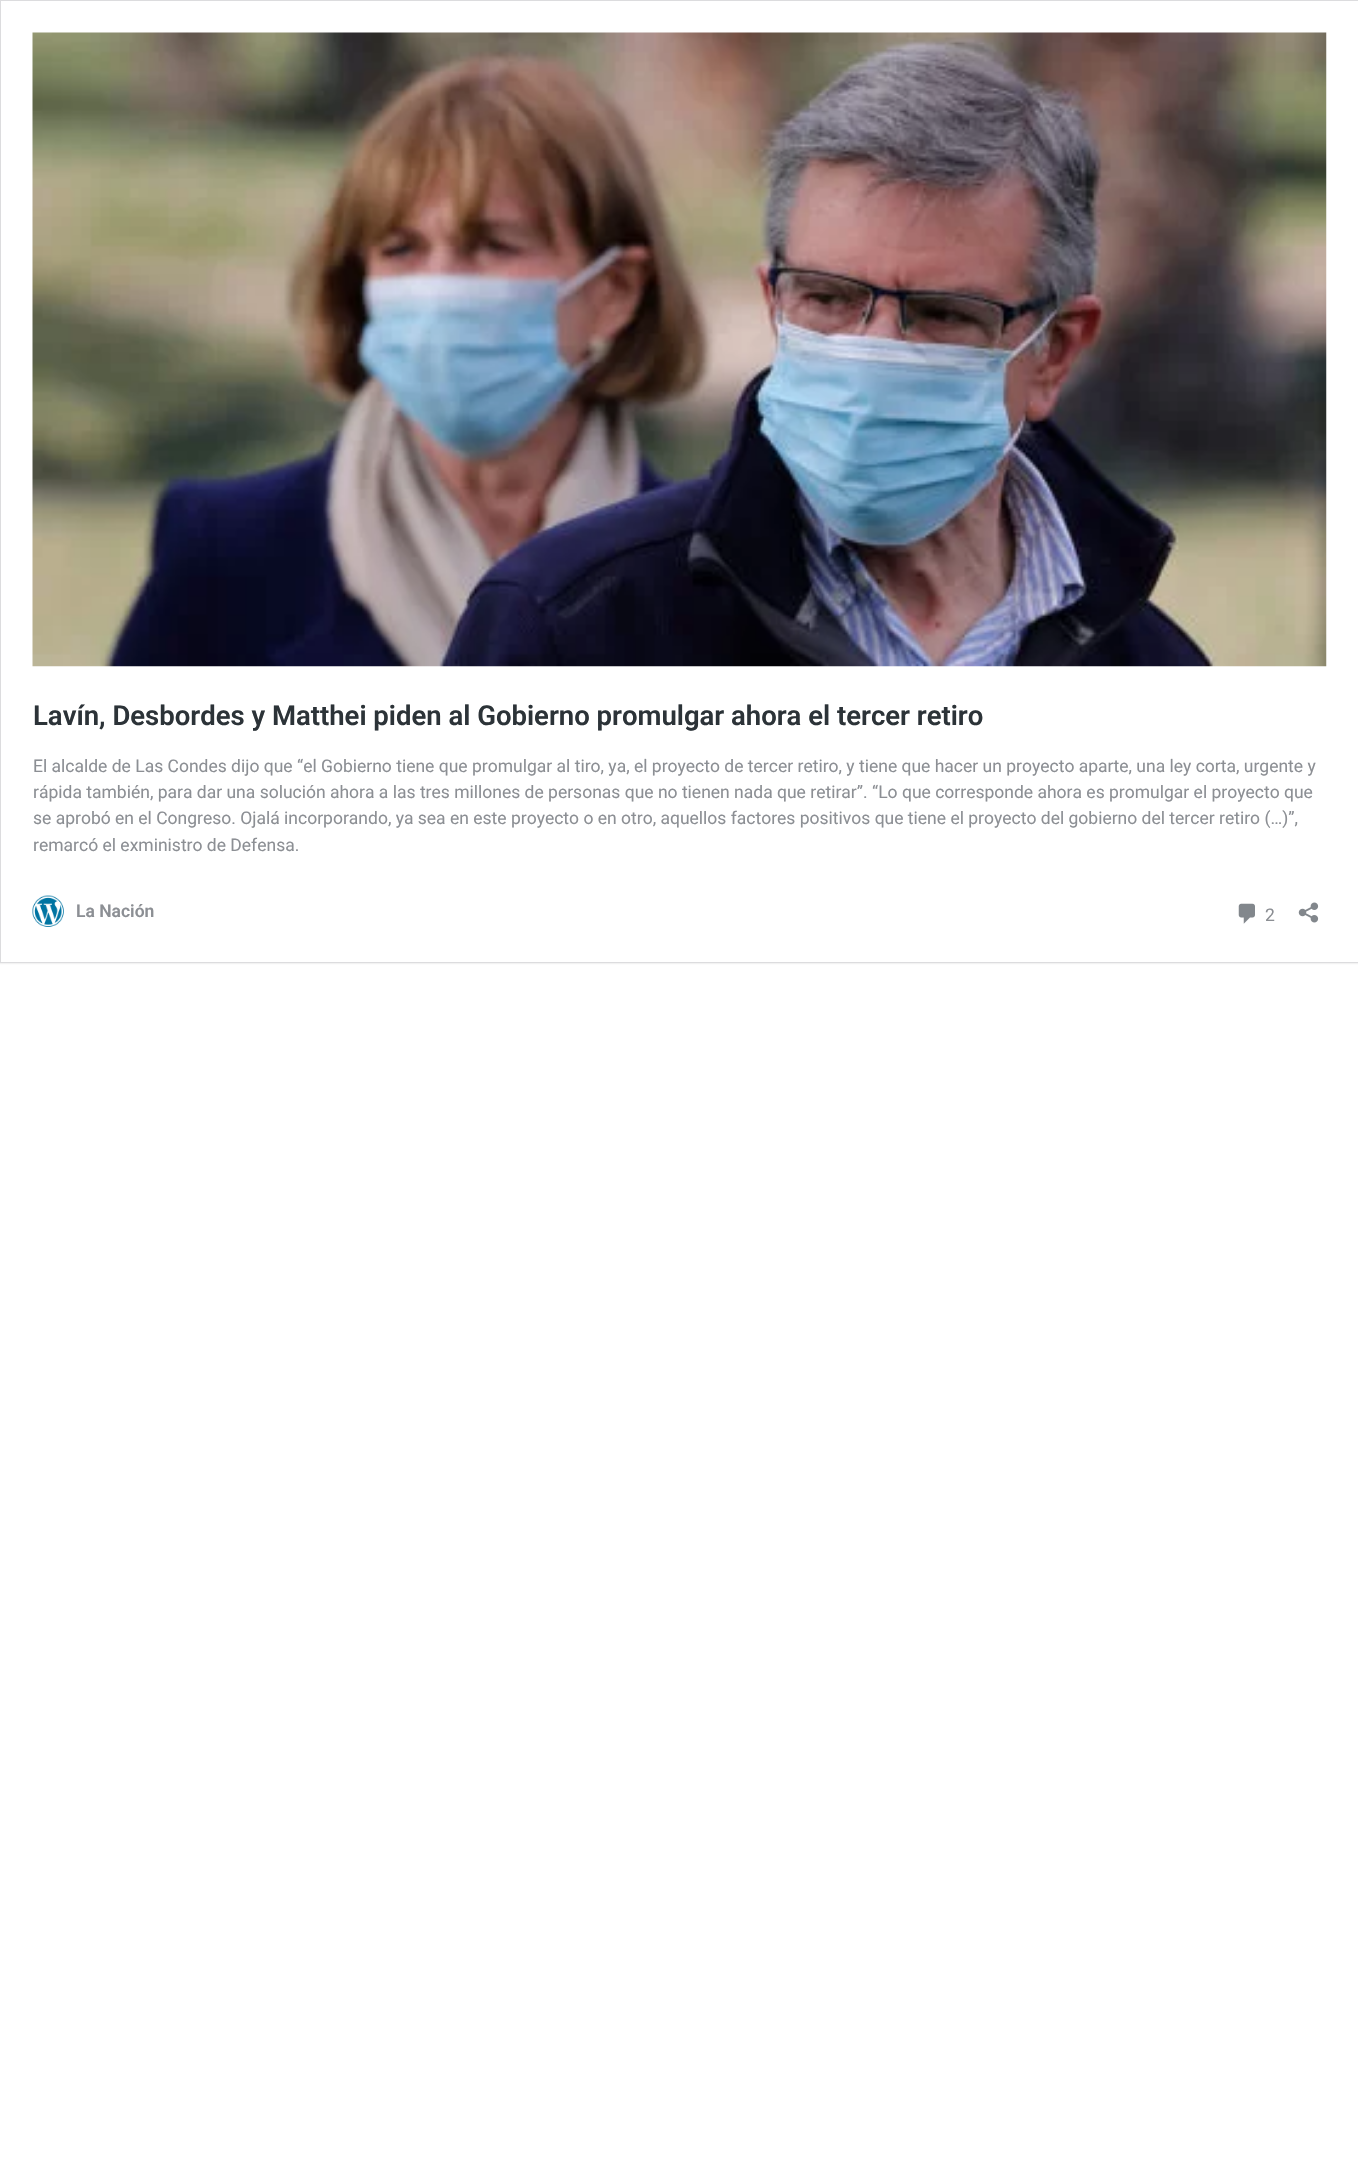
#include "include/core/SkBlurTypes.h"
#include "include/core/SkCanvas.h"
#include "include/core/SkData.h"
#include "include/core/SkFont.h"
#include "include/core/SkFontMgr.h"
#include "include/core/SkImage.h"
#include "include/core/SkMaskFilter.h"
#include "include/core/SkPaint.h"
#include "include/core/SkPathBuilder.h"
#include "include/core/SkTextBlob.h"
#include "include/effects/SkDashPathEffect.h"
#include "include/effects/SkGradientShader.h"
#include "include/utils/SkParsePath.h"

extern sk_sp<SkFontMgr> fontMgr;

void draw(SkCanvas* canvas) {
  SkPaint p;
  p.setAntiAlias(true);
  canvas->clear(SK_ColorWHITE);
  p.setColor(SkColorSetARGB(13, 0, 0, 0));
  p.setMaskFilter(SkMaskFilter::MakeBlur(kNormal_SkBlurStyle, 0.5f));
  canvas->drawRect(SkRect::MakeLTRB(0, 1, 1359, 964), p);
  p.setMaskFilter(nullptr);
  p.setColor(SK_ColorWHITE);
  canvas->drawRect(SkRect::MakeLTRB(0.5f, 0.5f, 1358.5f, 962.5f), p);
  p.setStyle(SkPaint::kStroke_Style);
  p.setStrokeWidth(1);
  p.setColor(SkColorSetRGB(220, 220, 222));
  canvas->drawRect(SkRect::MakeLTRB(0.5f, 0.5f, 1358.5f, 962.5f), p);
  canvas->drawImageRect(SkImages::DeferredFromEncodedData(SkData::MakeFromFileName("images/1.png")), SkRect::MakeLTRB(32, 32, 1327, 667), SkSamplingOptions());
  canvas->drawImageRect(SkImages::DeferredFromEncodedData(SkData::MakeFromFileName("images/2.png")), SkRect::MakeLTRB(32, 895, 64, 927), SkSamplingOptions());
  canvas->drawImageRect(SkImages::DeferredFromEncodedData(SkData::MakeFromFileName("images/3.png")), SkRect::MakeLTRB(1238, 903, 1255, 924), SkSamplingOptions());
  canvas->drawImageRect(SkImages::DeferredFromEncodedData(SkData::MakeFromFileName("images/4.png")), SkRect::MakeLTRB(1298, 902, 1319, 923), SkSamplingOptions());
  SkFont font1(fontMgr->matchFamilyStyle("Roboto", SkFontStyle(600, SkFontStyle::kNormal_Width, SkFontStyle::kUpright_Slant)), 27.5f);
  font1.setSubpixel(true);
  p.setStyle(SkPaint::kFill_Style);
  p.setColor(SkColorSetRGB(44, 51, 56));
  canvas->drawString("Lavín, Desbordes y Matthei piden al Gobierno promulgar ahora el tercer retiro", 33, 725, font1, p);
  SkFont font2(fontMgr->matchFamilyStyle("Roboto", SkFontStyle::Normal()), 17.5f);
  font2.setSubpixel(true);
  p.setColor(SkColorSetRGB(140, 143, 148));
  canvas->drawString("El alcalde de Las Condes dijo que “el Gobierno tiene que promulgar al tiro, ya, el proyecto de tercer retiro, y tiene que hacer un proyecto aparte, una ley corta, urgente y", 33, 772, font2, p);
  canvas->drawString("rápida también, para dar una solución ahora a las tres millones de personas que no tienen nada que retirar”. “Lo que corresponde ahora es promulgar el proyecto que", 33, 798, font2, p);
  canvas->drawString("se aprobó en el Congreso. Ojalá incorporando, ya sea en este proyecto o en otro, aquellos factores positivos que tiene el proyecto del gobierno del tercer retiro (…)”,", 33, 824, font2, p);
  canvas->drawString("remarcó el exministro de Defensa.", 33, 851, font2, p);
  SkFont font3(fontMgr->matchFamilyStyle("Roboto", SkFontStyle(600, SkFontStyle::kNormal_Width, SkFontStyle::kUpright_Slant)), 17.5f);
  font3.setSubpixel(true);
  canvas->drawString("La Nación", 76, 917, font3, p);
  canvas->drawString("2", 1265, 921, font2, p);
}
